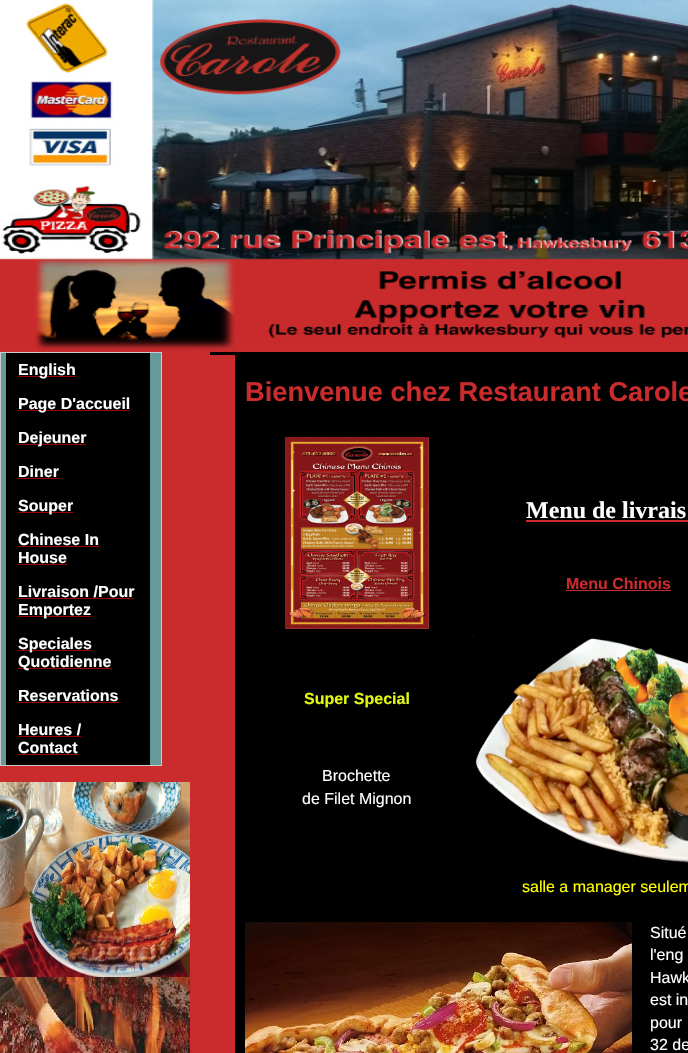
#include "include/core/SkBlurTypes.h"
#include "include/core/SkCanvas.h"
#include "include/core/SkData.h"
#include "include/core/SkFont.h"
#include "include/core/SkFontMgr.h"
#include "include/core/SkImage.h"
#include "include/core/SkMaskFilter.h"
#include "include/core/SkPaint.h"
#include "include/core/SkPathBuilder.h"
#include "include/core/SkTextBlob.h"
#include "include/effects/SkDashPathEffect.h"
#include "include/effects/SkGradientShader.h"
#include "include/utils/SkParsePath.h"

extern sk_sp<SkFontMgr> fontMgr;

void draw(SkCanvas* canvas) {
  SkPaint p;
  p.setAntiAlias(true);
  canvas->clear(SkColorSetRGB(202, 44, 45));
  canvas->drawImageRect(SkImages::DeferredFromEncodedData(SkData::MakeFromFileName("images/1.png")), SkRect::MakeLTRB(0, 0, 688, 351), SkSamplingOptions());
  p.setColor(SK_ColorBLACK);
  canvas->drawRect(SkRect::MakeLTRB(210, 352, 688, 355), p);
  p.setColor(SkColorSetRGB(102, 153, 153));
  canvas->drawRect(SkRect::MakeLTRB(0.5f, 352.5f, 161.5f, 765.5f), p);
  p.setStyle(SkPaint::kStroke_Style);
  p.setStrokeWidth(1);
  p.setColor(SkColorSetRGB(204, 204, 204));
  canvas->drawRect(SkRect::MakeLTRB(0.5f, 352.5f, 161.5f, 765.5f), p);
  p.setStyle(SkPaint::kFill_Style);
  p.setColor(SK_ColorBLACK);
  canvas->drawRect(SkRect::MakeLTRB(6, 353, 150, 765), p);
  p.setColor(SkColorSetRGB(153, 0, 0));
  canvas->drawRect(SkRect::MakeLTRB(18, 376, 76, 377), p);
  canvas->drawRect(SkRect::MakeLTRB(18, 410, 130, 411), p);
  canvas->drawRect(SkRect::MakeLTRB(18, 444, 86, 445), p);
  canvas->drawRect(SkRect::MakeLTRB(18, 478, 59, 479), p);
  canvas->drawRect(SkRect::MakeLTRB(18, 512, 73, 513), p);
  canvas->drawRect(SkRect::MakeLTRB(18, 546, 99, 547), p);
  canvas->drawRect(SkRect::MakeLTRB(18, 564, 67, 565), p);
  canvas->drawRect(SkRect::MakeLTRB(18, 598, 134, 599), p);
  canvas->drawRect(SkRect::MakeLTRB(18, 616, 91, 617), p);
  canvas->drawRect(SkRect::MakeLTRB(18, 650, 92, 651), p);
  canvas->drawRect(SkRect::MakeLTRB(18, 668, 111, 669), p);
  canvas->drawRect(SkRect::MakeLTRB(18, 702, 119, 703), p);
  canvas->drawRect(SkRect::MakeLTRB(18, 736, 81, 737), p);
  canvas->drawRect(SkRect::MakeLTRB(18, 754, 78, 755), p);
  canvas->drawImageRect(SkImages::DeferredFromEncodedData(SkData::MakeFromFileName("images/2.png")), SkRect::MakeLTRB(0, 782, 190, 977), SkSamplingOptions());
  canvas->drawImageRect(SkImages::DeferredFromEncodedData(SkData::MakeFromFileName("images/3.png")), SkRect::MakeLTRB(0, 977, 190, 1053), SkSamplingOptions());
  p.setColor(SK_ColorBLACK);
  canvas->drawRect(SkRect::MakeLTRB(235, 355, 688, 1053), p);
  canvas->drawImageRect(SkImages::DeferredFromEncodedData(SkData::MakeFromFileName("images/4.png")), SkRect::MakeLTRB(285, 437, 429, 629), SkSamplingOptions());
  p.setColor(SkColorSetRGB(201, 43, 44));
  canvas->drawRect(SkRect::MakeLTRB(526, 520, 688, 522), p);
  canvas->drawRect(SkRect::MakeLTRB(566, 590, 671, 591), p);
  canvas->drawImageRect(SkImages::DeferredFromEncodedData(SkData::MakeFromFileName("images/5.png")), SkRect::MakeLTRB(472, 635, 688, 863), SkSamplingOptions());
  canvas->drawImageRect(SkImages::DeferredFromEncodedData(SkData::MakeFromFileName("images/6.png")), SkRect::MakeLTRB(245, 922, 632, 1053), SkSamplingOptions());
  SkFont font1(fontMgr->matchFamilyStyle("Liberation Sans", SkFontStyle::Bold()), 16);
  font1.setSubpixel(true);
  p.setColor(SK_ColorWHITE);
  canvas->drawString("English", 18, 375, font1, p);
  canvas->drawString("Page D'accueil", 18, 409, font1, p);
  canvas->drawString("Dejeuner", 18, 443, font1, p);
  canvas->drawString("Diner", 18, 477, font1, p);
  canvas->drawString("Souper", 18, 511, font1, p);
  canvas->drawString("Chinese In", 18, 545, font1, p);
  canvas->drawString("House", 18, 563, font1, p);
  canvas->drawString("Livraison /Pour", 18, 597, font1, p);
  canvas->drawString("Emportez", 18, 615, font1, p);
  canvas->drawString("Speciales", 18, 649, font1, p);
  canvas->drawString("Quotidienne", 18, 667, font1, p);
  canvas->drawString("Reservations", 18, 701, font1, p);
  canvas->drawString("Heures /", 18, 735, font1, p);
  canvas->drawString("Contact", 18, 753, font1, p);
  SkFont font2(fontMgr->matchFamilyStyle("Liberation Sans", SkFontStyle::Bold()), 27.25f);
  font2.setSubpixel(true);
  p.setColor(SkColorSetRGB(202, 44, 45));
  canvas->drawString("Bienvenue chez Restaurant Carole", 245, 401, font2, p);
  SkFont font3(fontMgr->matchFamilyStyle("Liberation Serif", SkFontStyle::Bold()), 24);
  font3.setSubpixel(true);
  p.setColor(SK_ColorWHITE);
  canvas->drawString("Menu de livrais", 526, 518, font3, p);
  p.setColor(SkColorSetRGB(202, 44, 45));
  canvas->drawString("Menu Chinois", 566, 589, font1, p);
  p.setColor(SkColorSetRGB(226, 248, 15));
  canvas->drawString("Super Special", 304, 704, font1, p);
  SkFont font4(fontMgr->matchFamilyStyle("Liberation Sans", SkFontStyle::Normal()), 16);
  font4.setSubpixel(true);
  p.setColor(SK_ColorWHITE);
  canvas->drawString("Brochette", 322, 781, font4, p);
  canvas->drawString("de Filet Mignon", 302, 804, font4, p);
  p.setColor(SkColorSetRGB(255, 255, 0));
  canvas->drawString("salle a manager seulem", 522, 892, font4, p);
  p.setColor(SK_ColorWHITE);
  canvas->drawString("Situé", 650, 938, font4, p);
  canvas->drawString("l'eng", 650, 960, font4, p);
  canvas->drawString("Hawk", 650, 983, font4, p);
  canvas->drawString("est in", 650, 1005, font4, p);
  canvas->drawString("pour", 650, 1028, font4, p);
  canvas->drawString("32 de", 650, 1050, font4, p);
}
